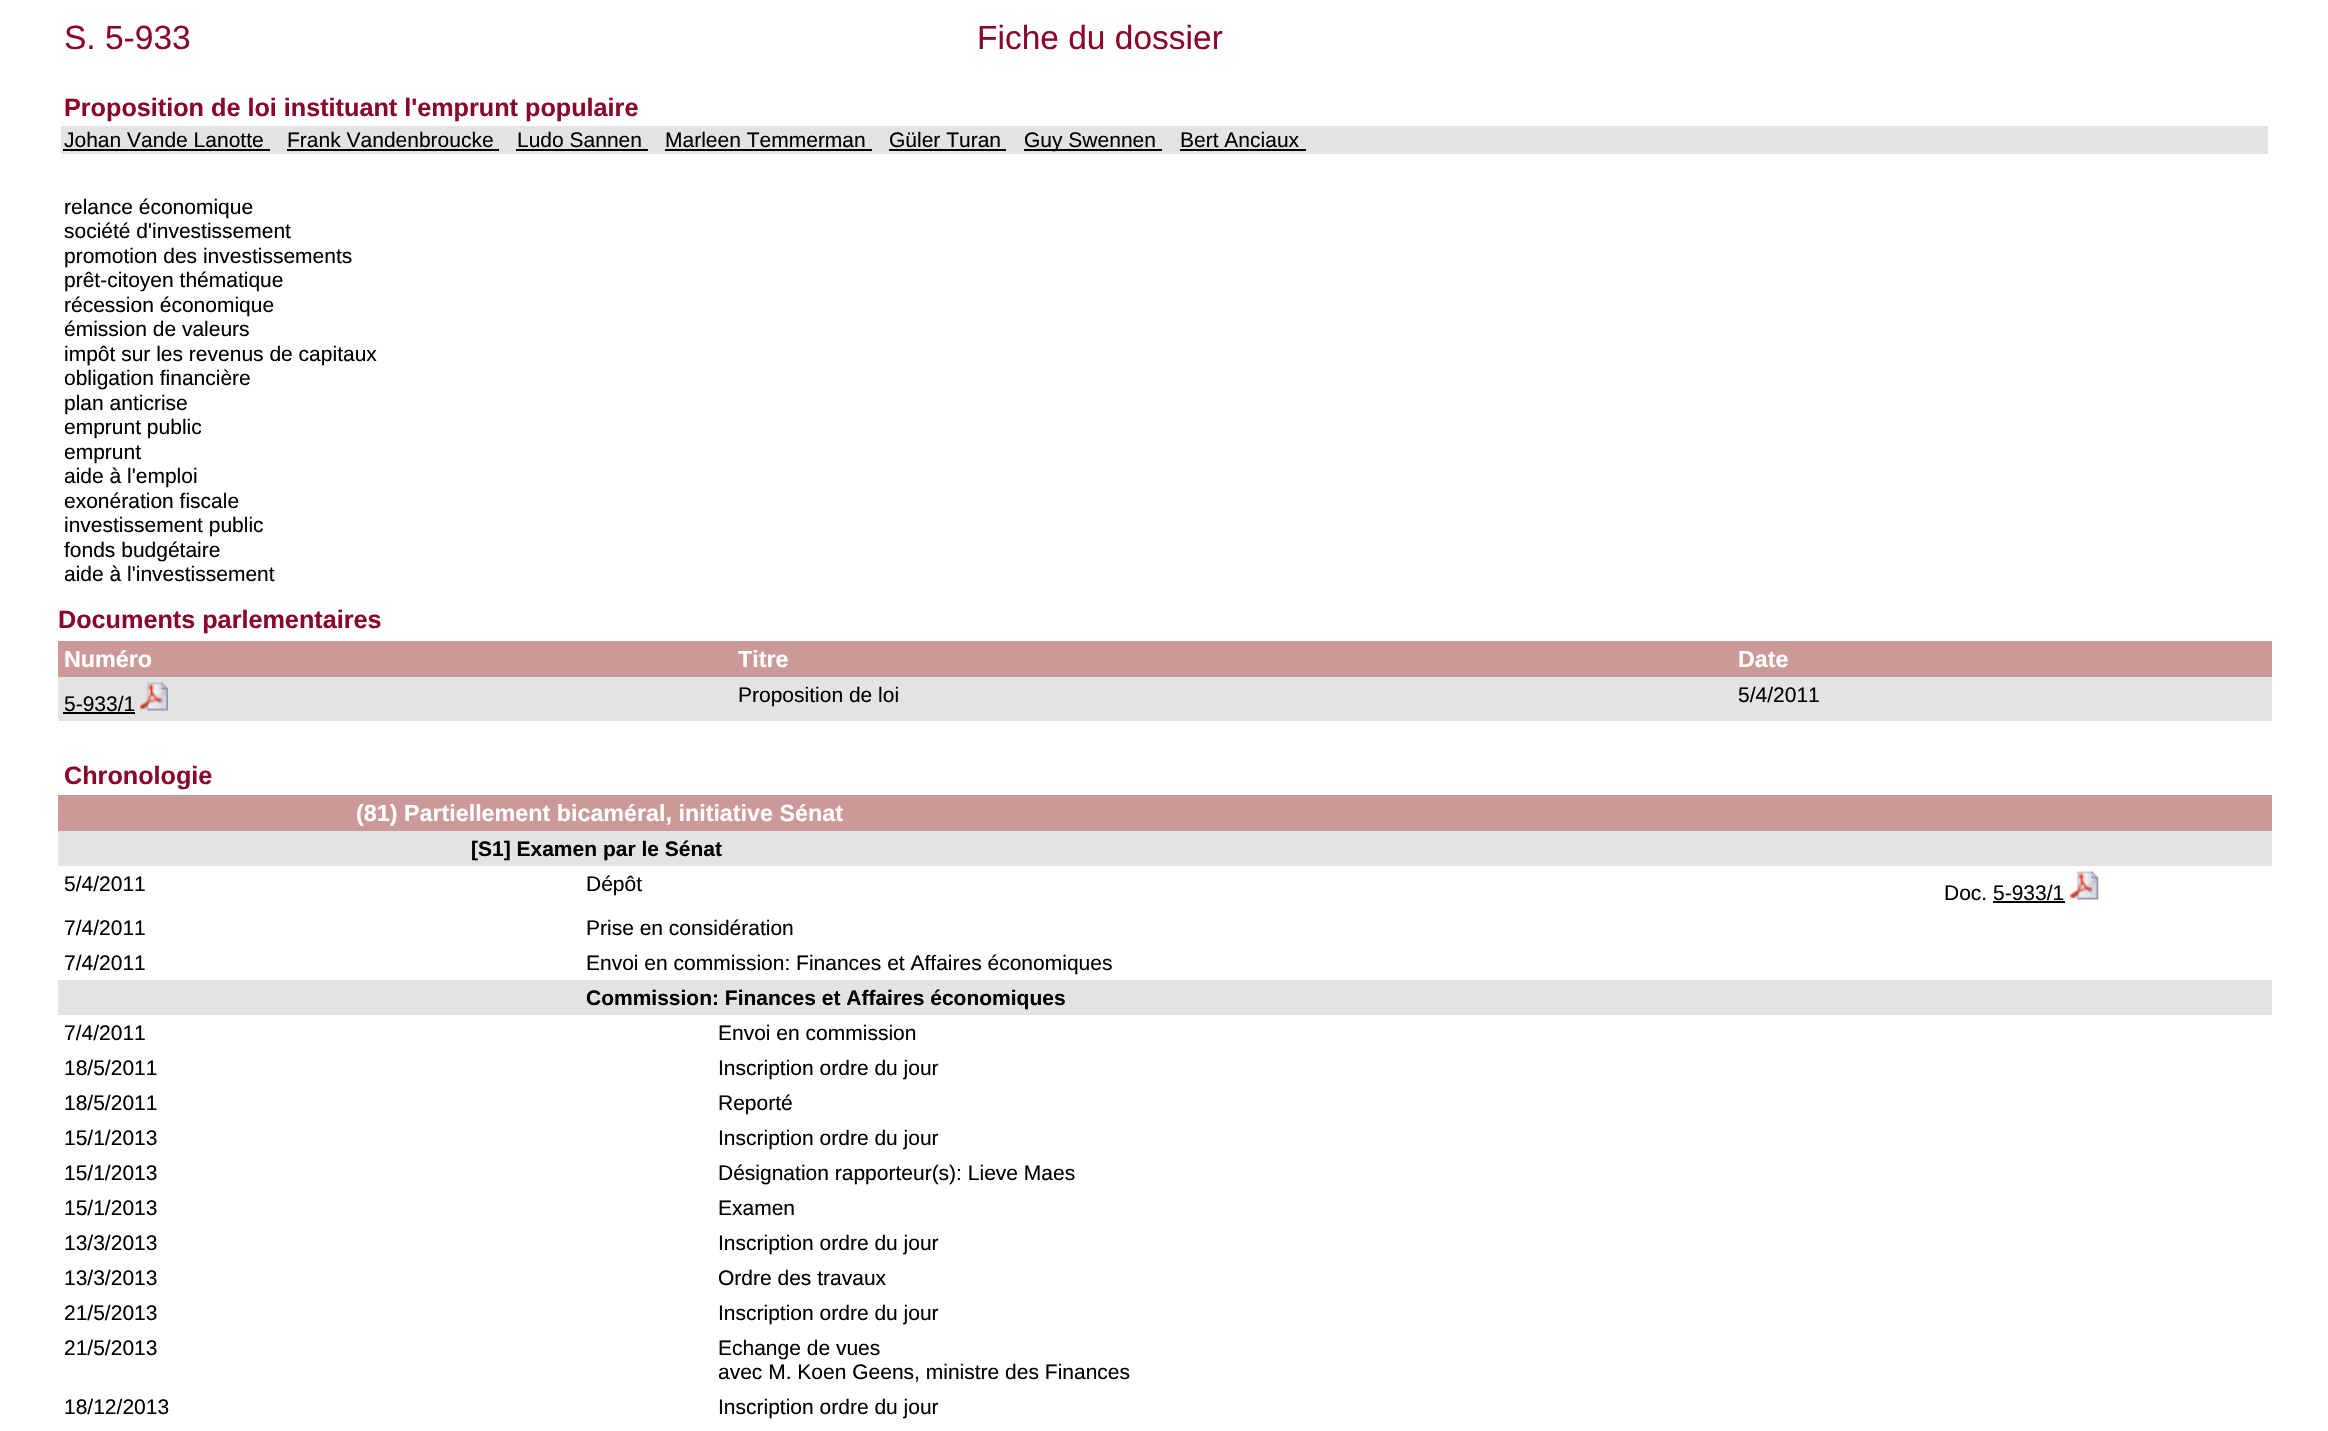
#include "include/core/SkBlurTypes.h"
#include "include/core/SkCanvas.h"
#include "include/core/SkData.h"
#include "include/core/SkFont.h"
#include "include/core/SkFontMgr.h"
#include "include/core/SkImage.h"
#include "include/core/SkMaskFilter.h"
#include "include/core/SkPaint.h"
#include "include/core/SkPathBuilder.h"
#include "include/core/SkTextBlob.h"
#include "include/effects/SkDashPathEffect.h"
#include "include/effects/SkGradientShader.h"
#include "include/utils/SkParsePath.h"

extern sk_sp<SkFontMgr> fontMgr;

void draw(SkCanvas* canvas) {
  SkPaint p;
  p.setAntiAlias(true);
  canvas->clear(SK_ColorWHITE);
  p.setColor(SkColorSetRGB(227, 227, 227));
  canvas->drawRect(SkRect::MakeLTRB(61, 126, 2268, 154), p);
  p.setColor(SK_ColorBLACK);
  canvas->drawRect(SkRect::MakeLTRB(63, 149, 270, 151), p);
  canvas->drawRect(SkRect::MakeLTRB(287, 149, 499, 151), p);
  canvas->drawRect(SkRect::MakeLTRB(516, 149, 648, 151), p);
  canvas->drawRect(SkRect::MakeLTRB(665, 149, 872, 151), p);
  canvas->drawRect(SkRect::MakeLTRB(889, 149, 1006, 151), p);
  canvas->drawRect(SkRect::MakeLTRB(1024, 149, 1162, 151), p);
  canvas->drawRect(SkRect::MakeLTRB(1180, 149, 1306, 151), p);
  p.setColor(SkColorSetRGB(204, 153, 153));
  canvas->drawRect(SkRect::MakeLTRB(58, 641, 2272, 677), p);
  p.setColor(SkColorSetRGB(227, 227, 227));
  canvas->drawRect(SkRect::MakeLTRB(58, 677, 2272, 721), p);
  p.setColor(SK_ColorBLACK);
  canvas->drawRect(SkRect::MakeLTRB(63, 712, 135, 714), p);
  canvas->drawImageRect(SkImages::DeferredFromEncodedData(SkData::MakeFromFileName("images/1.png")), SkRect::MakeLTRB(140, 682, 168, 711), SkSamplingOptions());
  p.setColor(SkColorSetRGB(204, 153, 153));
  canvas->drawRect(SkRect::MakeLTRB(58, 795, 2272, 831), p);
  p.setColor(SkColorSetRGB(227, 227, 227));
  canvas->drawRect(SkRect::MakeLTRB(58, 831, 2272, 866), p);
  canvas->drawImageRect(SkImages::DeferredFromEncodedData(SkData::MakeFromFileName("images/2.png")), SkRect::MakeLTRB(2070, 871, 2099, 900), SkSamplingOptions());
  p.setColor(SK_ColorBLACK);
  canvas->drawRect(SkRect::MakeLTRB(1993, 901, 2065, 903), p);
  p.setColor(SkColorSetRGB(227, 227, 227));
  canvas->drawRect(SkRect::MakeLTRB(58, 980, 2272, 1015), p);
  SkFont font1(fontMgr->matchFamilyStyle("Liberation Sans", SkFontStyle::Normal()), 33.5f);
  font1.setSubpixel(true);
  p.setColor(SkColorSetRGB(138, 6, 43));
  canvas->drawString("S. 5-933", 64, 49, font1, p);
  canvas->drawString("Fiche du dossier", 977, 49, font1, p);
  SkFont font2(fontMgr->matchFamilyStyle("Liberation Sans", SkFontStyle::Bold()), 25.2f);
  font2.setSubpixel(true);
  canvas->drawString("Proposition de loi instituant l'emprunt populaire", 64, 116, font2, p);
  SkFont font3(fontMgr->matchFamilyStyle("Liberation Sans", SkFontStyle::Normal()), 21);
  font3.setSubpixel(true);
  p.setColor(SK_ColorBLACK);
  canvas->drawString("Johan Vande Lanotte", 64, 147, font3, p);
  canvas->drawString("Frank Vandenbroucke", 287, 147, font3, p);
  canvas->drawString("Ludo Sannen", 517, 147, font3, p);
  canvas->drawString("Marleen Temmerman", 665, 147, font3, p);
  canvas->drawString("Güler Turan", 889, 147, font3, p);
  canvas->drawString("Guy Swennen", 1024, 147, font3, p);
  canvas->drawString("Bert Anciaux", 1180, 147, font3, p);
  canvas->drawString("relance économique", 64, 214, font3, p);
  canvas->drawString("société d'investissement", 64, 238, font3, p);
  canvas->drawString("promotion des investissements", 64, 263, font3, p);
  canvas->drawString("prêt-citoyen thématique", 64, 287, font3, p);
  canvas->drawString("récession économique", 64, 312, font3, p);
  canvas->drawString("émission de valeurs", 64, 336, font3, p);
  canvas->drawString("impôt sur les revenus de capitaux", 64, 361, font3, p);
  canvas->drawString("obligation financière", 64, 385, font3, p);
  canvas->drawString("plan anticrise", 64, 410, font3, p);
  canvas->drawString("emprunt public", 64, 434, font3, p);
  canvas->drawString("emprunt", 64, 459, font3, p);
  canvas->drawString("aide à l'emploi", 64, 483, font3, p);
  canvas->drawString("exonération fiscale", 64, 508, font3, p);
  canvas->drawString("investissement public", 64, 532, font3, p);
  canvas->drawString("fonds budgétaire", 64, 557, font3, p);
  canvas->drawString("aide à l'investissement", 64, 581, font3, p);
  p.setColor(SkColorSetRGB(138, 6, 43));
  canvas->drawString("Documents parlementaires", 58, 628, font2, p);
  SkFont font4(fontMgr->matchFamilyStyle("Liberation Sans", SkFontStyle::Bold()), 23.3f);
  font4.setSubpixel(true);
  p.setColor(SK_ColorWHITE);
  canvas->drawString("Numéro", 64, 667, font4, p);
  canvas->drawString("Titre", 738, 667, font4, p);
  canvas->drawString("Date", 1738, 667, font4, p);
  p.setColor(SK_ColorBLACK);
  canvas->drawString("5-933/1", 64, 711, font3, p);
  canvas->drawString("Proposition de loi", 738, 702, font3, p);
  canvas->drawString("5/4/2011", 1738, 702, font3, p);
  p.setColor(SkColorSetRGB(138, 6, 43));
  canvas->drawString("Chronologie", 64, 784, font2, p);
  p.setColor(SK_ColorWHITE);
  canvas->drawString("(81) Partiellement bicaméral, initiative Sénat", 356, 821, font4, p);
  SkFont font5(fontMgr->matchFamilyStyle("Liberation Sans", SkFontStyle::Bold()), 21);
  font5.setSubpixel(true);
  p.setColor(SK_ColorBLACK);
  canvas->drawString("[S1] Examen par le Sénat", 471, 856, font5, p);
  canvas->drawString("5/4/2011", 64, 891, font3, p);
  canvas->drawString("Dépôt", 586, 891, font3, p);
  canvas->drawString("Doc. 5-933/1", 1944, 900, font3, p);
  canvas->drawString("7/4/2011", 64, 935, font3, p);
  canvas->drawString("Prise en considération", 586, 935, font3, p);
  canvas->drawString("7/4/2011", 64, 970, font3, p);
  canvas->drawString("Envoi en commission: Finances et Affaires économiques", 586, 970, font3, p);
  canvas->drawString("Commission: Finances et Affaires économiques", 586, 1005, font5, p);
  canvas->drawString("7/4/2011", 64, 1040, font3, p);
  canvas->drawString("Envoi en commission", 718, 1040, font3, p);
  canvas->drawString("18/5/2011", 64, 1075, font3, p);
  canvas->drawString("Inscription ordre du jour", 718, 1075, font3, p);
  canvas->drawString("18/5/2011", 64, 1110, font3, p);
  canvas->drawString("Reporté", 718, 1110, font3, p);
  canvas->drawString("15/1/2013", 64, 1145, font3, p);
  canvas->drawString("Inscription ordre du jour", 718, 1145, font3, p);
  canvas->drawString("15/1/2013", 64, 1180, font3, p);
  canvas->drawString("Désignation rapporteur(s): Lieve Maes", 718, 1180, font3, p);
  canvas->drawString("15/1/2013", 64, 1215, font3, p);
  canvas->drawString("Examen", 718, 1215, font3, p);
  canvas->drawString("13/3/2013", 64, 1250, font3, p);
  canvas->drawString("Inscription ordre du jour", 718, 1250, font3, p);
  canvas->drawString("13/3/2013", 64, 1285, font3, p);
  canvas->drawString("Ordre des travaux", 718, 1285, font3, p);
  canvas->drawString("21/5/2013", 64, 1320, font3, p);
  canvas->drawString("Inscription ordre du jour", 718, 1320, font3, p);
  canvas->drawString("21/5/2013", 64, 1355, font3, p);
  canvas->drawString("Echange de vues", 718, 1355, font3, p);
  canvas->drawString("avec M. Koen Geens, ministre des Finances", 718, 1379, font3, p);
  canvas->drawString("18/12/2013", 64, 1414, font3, p);
  canvas->drawString("Inscription ordre du jour", 718, 1414, font3, p);
}
